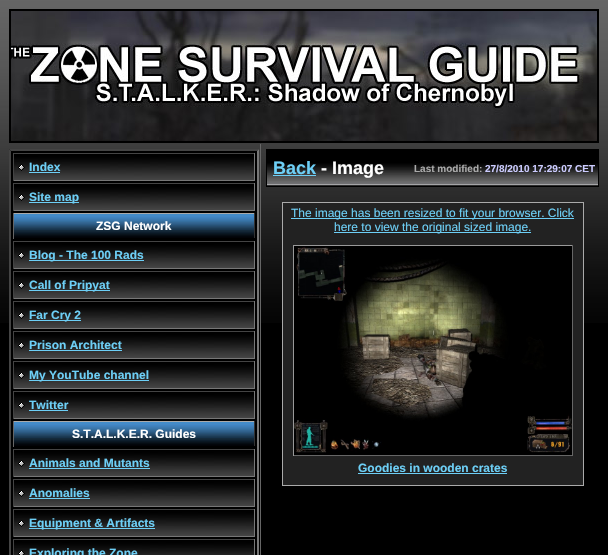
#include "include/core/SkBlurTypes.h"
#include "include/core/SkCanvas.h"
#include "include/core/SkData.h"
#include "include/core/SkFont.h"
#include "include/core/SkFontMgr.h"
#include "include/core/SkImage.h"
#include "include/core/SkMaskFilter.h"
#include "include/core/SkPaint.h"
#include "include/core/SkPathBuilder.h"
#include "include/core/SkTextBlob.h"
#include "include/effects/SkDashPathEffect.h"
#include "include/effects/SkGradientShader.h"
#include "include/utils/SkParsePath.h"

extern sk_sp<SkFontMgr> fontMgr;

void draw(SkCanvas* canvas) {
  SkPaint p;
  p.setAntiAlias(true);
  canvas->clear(SK_ColorBLACK);
  canvas->drawImageRect(SkImages::DeferredFromEncodedData(SkData::MakeFromFileName("images/1.png")), SkRect::MakeLTRB(0, 0, 608, 323), SkSamplingOptions());
  p.setStyle(SkPaint::kStroke_Style);
  p.setStrokeWidth(2);
  p.setColor(SK_ColorBLACK);
  canvas->drawRect(SkRect::MakeLTRB(10, 10, 598, 142), p);
  canvas->drawImageRect(SkImages::DeferredFromEncodedData(SkData::MakeFromFileName("images/2.png")), SkRect::MakeLTRB(11, 11, 597, 141), SkSamplingOptions());
  p.setStyle(SkPaint::kFill_Style);
  canvas->drawRect(SkRect::MakeLTRB(9, 149, 259, 323), p);
  p.setColor(SkColorSetRGB(68, 68, 68));
  canvas->drawPath(SkPathBuilder().moveTo(9, 149).lineTo(259, 149).lineTo(257, 151).lineTo(11, 151).close().detach(), p);
  p.setColor(SkColorSetRGB(119, 119, 119));
  canvas->drawPath(SkPathBuilder().moveTo(259, 149).lineTo(259, 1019).lineTo(257, 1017).lineTo(257, 151).close().detach(), p);
  p.setColor(SkColorSetRGB(68, 68, 68));
  canvas->drawPath(SkPathBuilder().moveTo(9, 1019).lineTo(9, 149).lineTo(11, 151).lineTo(11, 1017).close().detach(), p);
  canvas->drawImageRect(SkImages::DeferredFromEncodedData(SkData::MakeFromFileName("images/3.png")), SkRect::MakeLTRB(14, 154, 254, 180), SkSamplingOptions());
  canvas->drawRect(SkRect::MakeLTRB(13, 153, 255, 154), p);
  p.setColor(SkColorSetRGB(119, 119, 119));
  canvas->drawRect(SkRect::MakeLTRB(254, 153, 255, 181), p);
  canvas->drawRect(SkRect::MakeLTRB(13, 180, 255, 181), p);
  p.setColor(SkColorSetRGB(68, 68, 68));
  canvas->drawRect(SkRect::MakeLTRB(13, 153, 14, 181), p);
  canvas->drawImageRect(SkImages::DeferredFromEncodedData(SkData::MakeFromFileName("images/4.png")), SkRect::MakeLTRB(18, 164, 25, 171), SkSamplingOptions());
  p.setColor(SkColorSetRGB(109, 207, 246));
  canvas->drawRect(SkRect::MakeLTRB(29, 172, 60, 173), p);
  canvas->drawImageRect(SkImages::DeferredFromEncodedData(SkData::MakeFromFileName("images/3.png")), SkRect::MakeLTRB(14, 184, 254, 210), SkSamplingOptions());
  p.setColor(SkColorSetRGB(68, 68, 68));
  canvas->drawRect(SkRect::MakeLTRB(13, 183, 255, 184), p);
  p.setColor(SkColorSetRGB(119, 119, 119));
  canvas->drawRect(SkRect::MakeLTRB(254, 183, 255, 211), p);
  canvas->drawRect(SkRect::MakeLTRB(13, 210, 255, 211), p);
  p.setColor(SkColorSetRGB(68, 68, 68));
  canvas->drawRect(SkRect::MakeLTRB(13, 183, 14, 211), p);
  canvas->drawImageRect(SkImages::DeferredFromEncodedData(SkData::MakeFromFileName("images/4.png")), SkRect::MakeLTRB(18, 194, 25, 201), SkSamplingOptions());
  p.setColor(SkColorSetRGB(109, 207, 246));
  canvas->drawRect(SkRect::MakeLTRB(29, 202, 79, 203), p);
  canvas->drawImageRect(SkImages::DeferredFromEncodedData(SkData::MakeFromFileName("images/5.png")), SkRect::MakeLTRB(14, 214, 254, 238), SkSamplingOptions());
  p.setColor(SkColorSetRGB(170, 170, 170));
  canvas->drawRect(SkRect::MakeLTRB(13, 213, 255, 214), p);
  p.setColor(SkColorSetRGB(51, 51, 51));
  canvas->drawRect(SkRect::MakeLTRB(254, 213, 255, 239), p);
  p.setColor(SK_ColorBLACK);
  canvas->drawRect(SkRect::MakeLTRB(254, 238, 255, 239), p);
  p.setColor(SkColorSetRGB(102, 102, 102));
  canvas->drawRect(SkRect::MakeLTRB(13, 213, 14, 239), p);
  canvas->drawImageRect(SkImages::DeferredFromEncodedData(SkData::MakeFromFileName("images/3.png")), SkRect::MakeLTRB(14, 242, 254, 268), SkSamplingOptions());
  p.setColor(SkColorSetRGB(68, 68, 68));
  canvas->drawRect(SkRect::MakeLTRB(13, 241, 255, 242), p);
  p.setColor(SkColorSetRGB(119, 119, 119));
  canvas->drawRect(SkRect::MakeLTRB(254, 241, 255, 269), p);
  canvas->drawRect(SkRect::MakeLTRB(13, 268, 255, 269), p);
  p.setColor(SkColorSetRGB(68, 68, 68));
  canvas->drawRect(SkRect::MakeLTRB(13, 241, 14, 269), p);
  canvas->drawImageRect(SkImages::DeferredFromEncodedData(SkData::MakeFromFileName("images/4.png")), SkRect::MakeLTRB(18, 252, 25, 259), SkSamplingOptions());
  p.setColor(SkColorSetRGB(109, 207, 246));
  canvas->drawRect(SkRect::MakeLTRB(29, 260, 144, 261), p);
  canvas->drawImageRect(SkImages::DeferredFromEncodedData(SkData::MakeFromFileName("images/3.png")), SkRect::MakeLTRB(14, 272, 254, 298), SkSamplingOptions());
  p.setColor(SkColorSetRGB(68, 68, 68));
  canvas->drawRect(SkRect::MakeLTRB(13, 271, 255, 272), p);
  p.setColor(SkColorSetRGB(119, 119, 119));
  canvas->drawRect(SkRect::MakeLTRB(254, 271, 255, 299), p);
  canvas->drawRect(SkRect::MakeLTRB(13, 298, 255, 299), p);
  p.setColor(SkColorSetRGB(68, 68, 68));
  canvas->drawRect(SkRect::MakeLTRB(13, 271, 14, 299), p);
  canvas->drawImageRect(SkImages::DeferredFromEncodedData(SkData::MakeFromFileName("images/4.png")), SkRect::MakeLTRB(18, 282, 25, 289), SkSamplingOptions());
  p.setColor(SkColorSetRGB(109, 207, 246));
  canvas->drawRect(SkRect::MakeLTRB(29, 290, 110, 291), p);
  canvas->drawImageRect(SkImages::DeferredFromEncodedData(SkData::MakeFromFileName("images/3.png")), SkRect::MakeLTRB(14, 302, 254, 328), SkSamplingOptions());
  p.setColor(SkColorSetRGB(68, 68, 68));
  canvas->drawRect(SkRect::MakeLTRB(13, 301, 255, 302), p);
  p.setColor(SkColorSetRGB(119, 119, 119));
  canvas->drawRect(SkRect::MakeLTRB(254, 301, 255, 329), p);
  canvas->drawRect(SkRect::MakeLTRB(13, 328, 255, 329), p);
  p.setColor(SkColorSetRGB(68, 68, 68));
  canvas->drawRect(SkRect::MakeLTRB(13, 301, 14, 329), p);
  canvas->drawImageRect(SkImages::DeferredFromEncodedData(SkData::MakeFromFileName("images/4.png")), SkRect::MakeLTRB(18, 312, 25, 319), SkSamplingOptions());
  p.setColor(SkColorSetRGB(109, 207, 246));
  canvas->drawRect(SkRect::MakeLTRB(29, 320, 81, 321), p);
  canvas->drawImageRect(SkImages::DeferredFromEncodedData(SkData::MakeFromFileName("images/3.png")), SkRect::MakeLTRB(14, 332, 254, 358), SkSamplingOptions());
  p.setColor(SkColorSetRGB(68, 68, 68));
  canvas->drawRect(SkRect::MakeLTRB(13, 331, 255, 332), p);
  p.setColor(SkColorSetRGB(119, 119, 119));
  canvas->drawRect(SkRect::MakeLTRB(254, 331, 255, 359), p);
  canvas->drawRect(SkRect::MakeLTRB(13, 358, 255, 359), p);
  p.setColor(SkColorSetRGB(68, 68, 68));
  canvas->drawRect(SkRect::MakeLTRB(13, 331, 14, 359), p);
  canvas->drawImageRect(SkImages::DeferredFromEncodedData(SkData::MakeFromFileName("images/4.png")), SkRect::MakeLTRB(18, 342, 25, 349), SkSamplingOptions());
  p.setColor(SkColorSetRGB(109, 207, 246));
  canvas->drawRect(SkRect::MakeLTRB(29, 350, 122, 351), p);
  canvas->drawImageRect(SkImages::DeferredFromEncodedData(SkData::MakeFromFileName("images/3.png")), SkRect::MakeLTRB(14, 362, 254, 388), SkSamplingOptions());
  p.setColor(SkColorSetRGB(68, 68, 68));
  canvas->drawRect(SkRect::MakeLTRB(13, 361, 255, 362), p);
  p.setColor(SkColorSetRGB(119, 119, 119));
  canvas->drawRect(SkRect::MakeLTRB(254, 361, 255, 389), p);
  canvas->drawRect(SkRect::MakeLTRB(13, 388, 255, 389), p);
  p.setColor(SkColorSetRGB(68, 68, 68));
  canvas->drawRect(SkRect::MakeLTRB(13, 361, 14, 389), p);
  canvas->drawImageRect(SkImages::DeferredFromEncodedData(SkData::MakeFromFileName("images/4.png")), SkRect::MakeLTRB(18, 372, 25, 379), SkSamplingOptions());
  p.setColor(SkColorSetRGB(109, 207, 246));
  canvas->drawRect(SkRect::MakeLTRB(29, 380, 149, 381), p);
  canvas->drawImageRect(SkImages::DeferredFromEncodedData(SkData::MakeFromFileName("images/3.png")), SkRect::MakeLTRB(14, 392, 254, 418), SkSamplingOptions());
  p.setColor(SkColorSetRGB(68, 68, 68));
  canvas->drawRect(SkRect::MakeLTRB(13, 391, 255, 392), p);
  p.setColor(SkColorSetRGB(119, 119, 119));
  canvas->drawRect(SkRect::MakeLTRB(254, 391, 255, 419), p);
  canvas->drawRect(SkRect::MakeLTRB(13, 418, 255, 419), p);
  p.setColor(SkColorSetRGB(68, 68, 68));
  canvas->drawRect(SkRect::MakeLTRB(13, 391, 14, 419), p);
  canvas->drawImageRect(SkImages::DeferredFromEncodedData(SkData::MakeFromFileName("images/4.png")), SkRect::MakeLTRB(18, 402, 25, 409), SkSamplingOptions());
  p.setColor(SkColorSetRGB(109, 207, 246));
  canvas->drawRect(SkRect::MakeLTRB(29, 410, 68, 411), p);
  canvas->drawImageRect(SkImages::DeferredFromEncodedData(SkData::MakeFromFileName("images/5.png")), SkRect::MakeLTRB(14, 422, 254, 446), SkSamplingOptions());
  p.setColor(SkColorSetRGB(170, 170, 170));
  canvas->drawRect(SkRect::MakeLTRB(13, 421, 255, 422), p);
  p.setColor(SkColorSetRGB(51, 51, 51));
  canvas->drawRect(SkRect::MakeLTRB(254, 421, 255, 447), p);
  p.setColor(SK_ColorBLACK);
  canvas->drawRect(SkRect::MakeLTRB(254, 446, 255, 447), p);
  p.setColor(SkColorSetRGB(102, 102, 102));
  canvas->drawRect(SkRect::MakeLTRB(13, 421, 14, 447), p);
  canvas->drawImageRect(SkImages::DeferredFromEncodedData(SkData::MakeFromFileName("images/3.png")), SkRect::MakeLTRB(14, 450, 254, 476), SkSamplingOptions());
  p.setColor(SkColorSetRGB(68, 68, 68));
  canvas->drawRect(SkRect::MakeLTRB(13, 449, 255, 450), p);
  p.setColor(SkColorSetRGB(119, 119, 119));
  canvas->drawRect(SkRect::MakeLTRB(254, 449, 255, 477), p);
  canvas->drawRect(SkRect::MakeLTRB(13, 476, 255, 477), p);
  p.setColor(SkColorSetRGB(68, 68, 68));
  canvas->drawRect(SkRect::MakeLTRB(13, 449, 14, 477), p);
  canvas->drawImageRect(SkImages::DeferredFromEncodedData(SkData::MakeFromFileName("images/4.png")), SkRect::MakeLTRB(18, 460, 25, 467), SkSamplingOptions());
  p.setColor(SkColorSetRGB(109, 207, 246));
  canvas->drawRect(SkRect::MakeLTRB(29, 468, 150, 469), p);
  canvas->drawImageRect(SkImages::DeferredFromEncodedData(SkData::MakeFromFileName("images/3.png")), SkRect::MakeLTRB(14, 480, 254, 506), SkSamplingOptions());
  p.setColor(SkColorSetRGB(68, 68, 68));
  canvas->drawRect(SkRect::MakeLTRB(13, 479, 255, 480), p);
  p.setColor(SkColorSetRGB(119, 119, 119));
  canvas->drawRect(SkRect::MakeLTRB(254, 479, 255, 507), p);
  canvas->drawRect(SkRect::MakeLTRB(13, 506, 255, 507), p);
  p.setColor(SkColorSetRGB(68, 68, 68));
  canvas->drawRect(SkRect::MakeLTRB(13, 479, 14, 507), p);
  canvas->drawImageRect(SkImages::DeferredFromEncodedData(SkData::MakeFromFileName("images/4.png")), SkRect::MakeLTRB(18, 490, 25, 497), SkSamplingOptions());
  p.setColor(SkColorSetRGB(109, 207, 246));
  canvas->drawRect(SkRect::MakeLTRB(29, 498, 90, 499), p);
  canvas->drawImageRect(SkImages::DeferredFromEncodedData(SkData::MakeFromFileName("images/3.png")), SkRect::MakeLTRB(14, 510, 254, 536), SkSamplingOptions());
  p.setColor(SkColorSetRGB(68, 68, 68));
  canvas->drawRect(SkRect::MakeLTRB(13, 509, 255, 510), p);
  p.setColor(SkColorSetRGB(119, 119, 119));
  canvas->drawRect(SkRect::MakeLTRB(254, 509, 255, 537), p);
  canvas->drawRect(SkRect::MakeLTRB(13, 536, 255, 537), p);
  p.setColor(SkColorSetRGB(68, 68, 68));
  canvas->drawRect(SkRect::MakeLTRB(13, 509, 14, 537), p);
  canvas->drawImageRect(SkImages::DeferredFromEncodedData(SkData::MakeFromFileName("images/4.png")), SkRect::MakeLTRB(18, 520, 25, 527), SkSamplingOptions());
  p.setColor(SkColorSetRGB(109, 207, 246));
  canvas->drawRect(SkRect::MakeLTRB(29, 528, 155, 529), p);
  canvas->drawImageRect(SkImages::DeferredFromEncodedData(SkData::MakeFromFileName("images/6.png")), SkRect::MakeLTRB(14, 540, 254, 555), SkSamplingOptions());
  p.setColor(SkColorSetRGB(68, 68, 68));
  canvas->drawRect(SkRect::MakeLTRB(13, 539, 255, 540), p);
  p.setColor(SkColorSetRGB(119, 119, 119));
  canvas->drawRect(SkRect::MakeLTRB(254, 539, 255, 555), p);
  p.setColor(SkColorSetRGB(68, 68, 68));
  canvas->drawRect(SkRect::MakeLTRB(13, 539, 14, 555), p);
  canvas->drawImageRect(SkImages::DeferredFromEncodedData(SkData::MakeFromFileName("images/7.png")), SkRect::MakeLTRB(18, 550, 25, 555), SkSamplingOptions());
  p.setColor(SkColorSetRGB(102, 102, 102));
  canvas->drawRect(SkRect::MakeLTRB(260, 144, 261, 555), p);
  canvas->drawImageRect(SkImages::DeferredFromEncodedData(SkData::MakeFromFileName("images/8.png")), SkRect::MakeLTRB(267, 150, 598, 185), SkSamplingOptions());
  p.setStyle(SkPaint::kStroke_Style);
  p.setStrokeWidth(1);
  p.setColor(SK_ColorBLACK);
  canvas->drawRect(SkRect::MakeLTRB(266.5f, 149.5f, 598.5f, 186.5f), p);
  p.setStyle(SkPaint::kFill_Style);
  p.setColor(SkColorSetRGB(109, 207, 246));
  canvas->drawRect(SkRect::MakeLTRB(273, 175, 316, 176), p);
  p.setColor(SkColorSetRGB(34, 34, 34));
  canvas->drawRect(SkRect::MakeLTRB(282.5f, 202.5f, 583.5f, 485.5f), p);
  p.setStyle(SkPaint::kStroke_Style);
  p.setColor(SkColorSetRGB(170, 170, 170));
  canvas->drawRect(SkRect::MakeLTRB(282.5f, 202.5f, 583.5f, 485.5f), p);
  p.setStyle(SkPaint::kFill_Style);
  p.setColor(SkColorSetRGB(109, 207, 246));
  canvas->drawRect(SkRect::MakeLTRB(291, 218, 574, 219), p);
  canvas->drawRect(SkRect::MakeLTRB(334, 232, 531, 233), p);
  canvas->drawImageRect(SkImages::DeferredFromEncodedData(SkData::MakeFromFileName("images/9.png")), SkRect::MakeLTRB(294, 246, 572, 455), SkSamplingOptions());
  p.setColor(SkColorSetRGB(153, 153, 153));
  canvas->drawRect(SkRect::MakeLTRB(293, 245, 573, 246), p);
  p.setColor(SkColorSetRGB(102, 102, 102));
  canvas->drawRect(SkRect::MakeLTRB(572, 245, 573, 456), p);
  canvas->drawRect(SkRect::MakeLTRB(293, 455, 573, 456), p);
  p.setColor(SkColorSetRGB(153, 153, 153));
  canvas->drawRect(SkRect::MakeLTRB(293, 245, 294, 456), p);
  p.setColor(SkColorSetRGB(109, 207, 246));
  canvas->drawRect(SkRect::MakeLTRB(358, 473, 507, 474), p);
  SkFont font1(fontMgr->matchFamilyStyle("Liberation Sans", SkFontStyle::Bold()), 12);
  font1.setSubpixel(true);
  canvas->drawString("Index", 29, 171, font1, p);
  canvas->drawString("Site map", 29, 201, font1, p);
  p.setColor(SK_ColorWHITE);
  canvas->drawString("ZSG Network", 96, 230, font1, p);
  p.setColor(SkColorSetRGB(109, 207, 246));
  canvas->drawString("Blog - The 100 Rads", 29, 259, font1, p);
  canvas->drawString("Call of Pripyat", 29, 289, font1, p);
  canvas->drawString("Far Cry 2", 29, 319, font1, p);
  canvas->drawString("Prison Architect", 29, 349, font1, p);
  canvas->drawString("My YouTube channel", 29, 379, font1, p);
  canvas->drawString("Twitter", 29, 409, font1, p);
  p.setColor(SK_ColorWHITE);
  canvas->drawString("S.T.A.L.K.E.R. Guides", 72, 438, font1, p);
  p.setColor(SkColorSetRGB(109, 207, 246));
  canvas->drawString("Animals and Mutants", 29, 467, font1, p);
  canvas->drawString("Anomalies", 29, 497, font1, p);
  canvas->drawString("Equipment & Artifacts", 29, 527, font1, p);
  canvas->drawString("Exploring the Zone", 29, 557, font1, p);
  SkFont font2(fontMgr->matchFamilyStyle("Liberation Sans", SkFontStyle::Bold()), 18);
  font2.setSubpixel(true);
  canvas->drawString("Back", 273, 174, font2, p);
  p.setColor(SK_ColorWHITE);
  canvas->drawString("- Image", 321, 174, font2, p);
  SkFont font3(fontMgr->matchFamilyStyle("Liberation Sans", SkFontStyle::Bold()), 10);
  font3.setSubpixel(true);
  p.setColor(SkColorSetRGB(170, 170, 170));
  canvas->drawString("Last modified:", 414, 172, font3, p);
  p.setColor(SkColorSetRGB(204, 204, 255));
  canvas->drawString("27/8/2010 17:29:07 CET", 485, 172, font3, p);
  SkFont font4(fontMgr->matchFamilyStyle("Liberation Sans", SkFontStyle::Normal()), 12);
  font4.setSubpixel(true);
  p.setColor(SkColorSetRGB(109, 207, 246));
  canvas->drawString("The image has been resized to fit your browser. Click", 291, 217, font4, p);
  canvas->drawString("here to view the original sized image.", 334, 231, font4, p);
  canvas->drawString("Goodies in wooden crates", 358, 472, font1, p);
}
